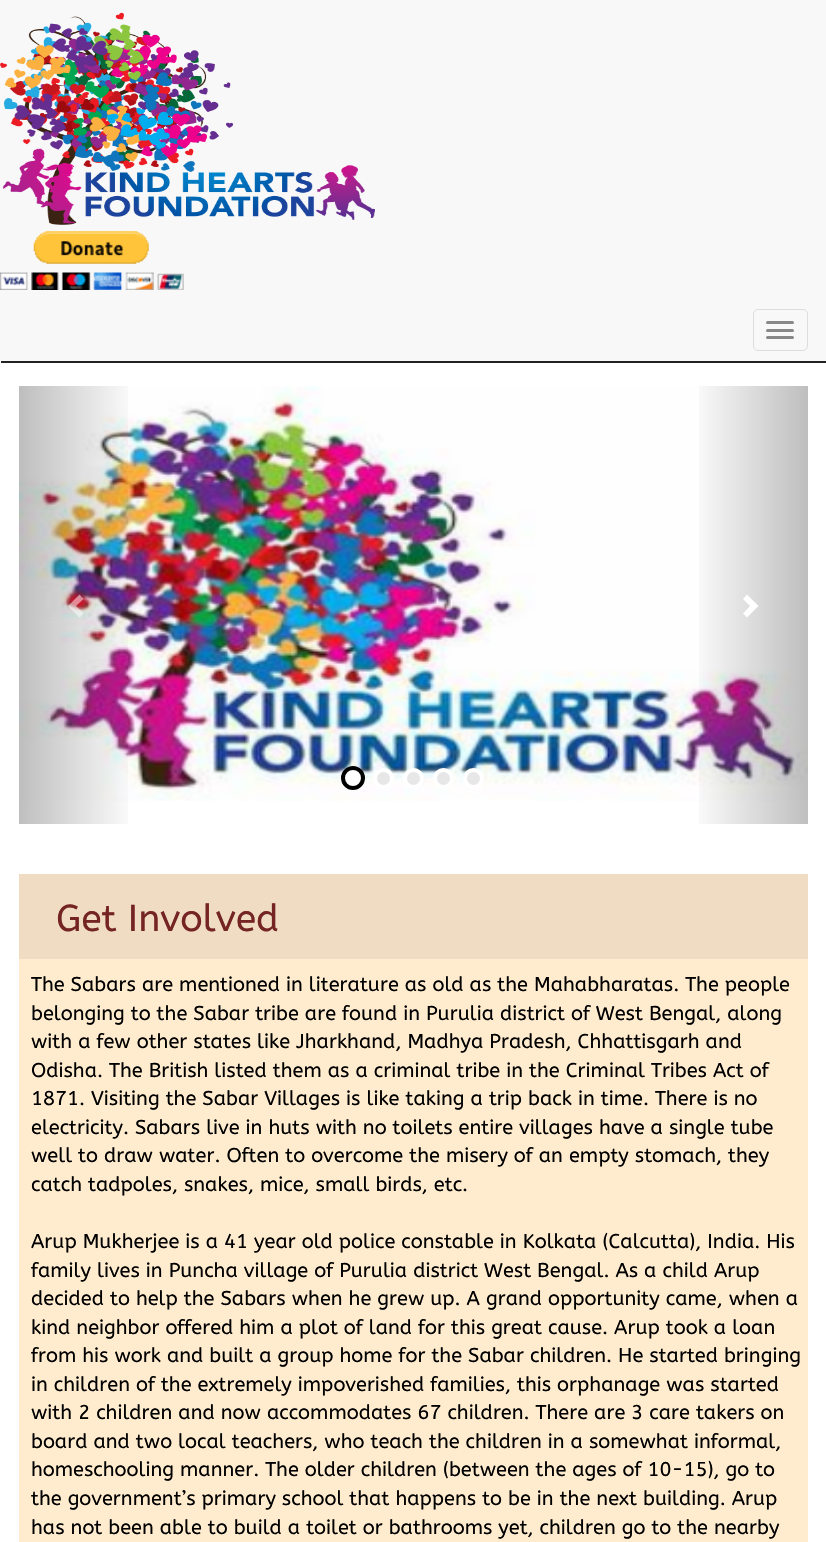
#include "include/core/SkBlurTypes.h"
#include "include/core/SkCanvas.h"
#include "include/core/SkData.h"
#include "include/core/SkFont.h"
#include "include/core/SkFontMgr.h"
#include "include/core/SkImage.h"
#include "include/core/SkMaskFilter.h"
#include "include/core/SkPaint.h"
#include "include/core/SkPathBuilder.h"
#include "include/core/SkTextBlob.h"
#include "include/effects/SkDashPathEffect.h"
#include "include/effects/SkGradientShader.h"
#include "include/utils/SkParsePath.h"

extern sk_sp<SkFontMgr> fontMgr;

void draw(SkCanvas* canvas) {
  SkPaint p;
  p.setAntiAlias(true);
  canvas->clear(SK_ColorWHITE);
  p.setColor(SkColorSetRGB(34, 34, 34));
  canvas->drawPath(SkPathBuilder().moveTo(1, 361).lineTo(1, 363).lineTo(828, 363).lineTo(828, 1).lineTo(826, 1).lineTo(826, 361).close().detach(), p);
  p.setColor(SkColorSetRGB(248, 248, 248));
  canvas->drawRect(SkRect::MakeLTRB(0, 0, 826, 361), p);
  canvas->drawImageRect(SkImages::DeferredFromEncodedData(SkData::MakeFromFileName("images/1.png")), SkRect::MakeLTRB(0, 12, 375, 225), SkSamplingOptions());
  canvas->drawImageRect(SkImages::DeferredFromEncodedData(SkData::MakeFromFileName("images/2.png")), SkRect::MakeLTRB(0, 231, 184, 290), SkSamplingOptions());
  p.setStyle(SkPaint::kStroke_Style);
  p.setStrokeWidth(1);
  p.setColor(SkColorSetRGB(221, 221, 221));
  canvas->drawRoundRect(SkRect::MakeLTRB(753.5f, 309.5f, 807.5f, 350.5f), 4.5f, 4.5f, p);
  p.setStyle(SkPaint::kFill_Style);
  p.setColor(SkColorSetRGB(136, 136, 136));
  canvas->drawRoundRect(SkRect::MakeLTRB(766, 321, 794, 324), 1.5f, 1.5f, p);
  canvas->drawRoundRect(SkRect::MakeLTRB(766, 329, 794, 332), 1.5f, 1.5f, p);
  canvas->drawRoundRect(SkRect::MakeLTRB(766, 336, 794, 339), 1.5f, 1.5f, p);
  canvas->drawImageRect(SkImages::DeferredFromEncodedData(SkData::MakeFromFileName("images/3.png")), SkRect::MakeLTRB(18, 386, 808, 801), SkSamplingOptions());
  {
    const SkColor colors[] = {SkColorSetARGB(64, 0, 0, 0), SkColorSetARGB(0, 0, 0, 0)};
    const float stops[] = {0, 1};
    const SkPoint ends[] = {{19, 605}, {138, 605}};
    p.setShader(SkGradientShader::MakeLinear(ends, colors, stops, 2, SkTileMode::kClamp));
    p.setAlpha(255);
  }
  canvas->drawRect(SkRect::MakeLTRB(19, 386, 128, 824), p);
  p.setShader(nullptr);
  p.setColor(SkColorSetARGB(128, 255, 255, 255));
  canvas->drawPath(SkPathBuilder().moveTo(83.5f, 599).lineTo(76, 606).lineTo(83.5f, 613.5f).lineTo(79.5f, 617.5f).lineTo(68, 606).lineTo(79.5f, 594.5f).close().detach(), p);
  p.setColor(SK_ColorWHITE);
  canvas->drawCircle(353, 778, 10, p);
  p.setStyle(SkPaint::kStroke_Style);
  p.setStrokeWidth(4);
  p.setColor(SK_ColorBLACK);
  canvas->drawCircle(353, 778, 10, p);
  p.setStyle(SkPaint::kFill_Style);
  p.setColor(SkColorSetRGB(231, 231, 231));
  canvas->drawCircle(383.5f, 778.5f, 8.5f, p);
  p.setStyle(SkPaint::kStroke_Style);
  p.setColor(SK_ColorWHITE);
  canvas->drawCircle(383.5f, 778.5f, 8.5f, p);
  p.setStyle(SkPaint::kFill_Style);
  p.setColor(SkColorSetRGB(231, 231, 231));
  canvas->drawCircle(413.5f, 778.5f, 8.5f, p);
  p.setStyle(SkPaint::kStroke_Style);
  p.setColor(SK_ColorWHITE);
  canvas->drawCircle(413.5f, 778.5f, 8.5f, p);
  p.setStyle(SkPaint::kFill_Style);
  p.setColor(SkColorSetRGB(231, 231, 231));
  canvas->drawCircle(443.5f, 778.5f, 8.5f, p);
  p.setStyle(SkPaint::kStroke_Style);
  p.setColor(SK_ColorWHITE);
  canvas->drawCircle(443.5f, 778.5f, 8.5f, p);
  p.setStyle(SkPaint::kFill_Style);
  p.setColor(SkColorSetRGB(231, 231, 231));
  canvas->drawCircle(473.5f, 778.5f, 8.5f, p);
  p.setStyle(SkPaint::kStroke_Style);
  p.setColor(SK_ColorWHITE);
  canvas->drawCircle(473.5f, 778.5f, 8.5f, p);
  p.setStyle(SkPaint::kFill_Style);
  {
    const SkColor colors[] = {SkColorSetARGB(0, 0, 0, 0), SkColorSetARGB(64, 0, 0, 0)};
    const float stops[] = {0, 1};
    const SkPoint ends[] = {{689, 605}, {808, 605}};
    p.setShader(SkGradientShader::MakeLinear(ends, colors, stops, 2, SkTileMode::kClamp));
    p.setAlpha(255);
  }
  canvas->drawRect(SkRect::MakeLTRB(699, 386, 808, 824), p);
  p.setShader(nullptr);
  p.setColor(SK_ColorWHITE);
  canvas->drawPath(SkPathBuilder().moveTo(758.5f, 606).lineTo(747, 617.5f).lineTo(743, 613.5f).lineTo(750, 606).lineTo(743, 599).lineTo(747, 594.5f).close().detach(), p);
  p.setColor(SkColorSetRGB(239, 220, 195));
  canvas->drawRect(SkRect::MakeLTRB(19, 874, 808, 959), p);
  p.setColor(SkColorSetRGB(255, 235, 205));
  canvas->drawRect(SkRect::MakeLTRB(19, 959, 808, 1542), p);
  SkFont font1(fontMgr->matchFamilyStyle("ABeeZee", SkFontStyle::Normal()), 37.5f);
  font1.setSubpixel(true);
  p.setColor(SkColorSetRGB(117, 36, 36));
  canvas->drawString("Get Involved", 56, 931, font1, p);
  SkFont font2(fontMgr->matchFamilyStyle("ABeeZee", SkFontStyle::Normal()), 20);
  font2.setSubpixel(true);
  p.setColor(SK_ColorBLACK);
  canvas->drawString("The Sabars are mentioned in literature as old as the Mahabharatas. The people", 31, 991, font2, p);
  canvas->drawString("belonging to the Sabar tribe are found in Purulia district of West Bengal, along", 31, 1020, font2, p);
  canvas->drawString("with a few other states like Jharkhand, Madhya Pradesh, Chhattisgarh and", 31, 1048, font2, p);
  canvas->drawString("Odisha. The British listed them as a criminal tribe in the Criminal Tribes Act of", 31, 1077, font2, p);
  canvas->drawString("1871. Visiting the Sabar Villages is like taking a trip back in time. There is no", 31, 1105, font2, p);
  canvas->drawString("electricity. Sabars live in huts with no toilets entire villages have a single tube", 31, 1134, font2, p);
  canvas->drawString("well to draw water. Often to overcome the misery of an empty stomach, they", 31, 1162, font2, p);
  canvas->drawString("catch tadpoles, snakes, mice, small birds, etc.", 31, 1191, font2, p);
  canvas->drawString("Arup Mukherjee is a 41 year old police constable in Kolkata (Calcutta), India. His", 31, 1248, font2, p);
  canvas->drawString("family lives in Puncha village of Purulia district West Bengal. As a child Arup", 31, 1277, font2, p);
  canvas->drawString("decided to help the Sabars when he grew up. A grand opportunity came, when a", 31, 1305, font2, p);
  canvas->drawString("kind neighbor offered him a plot of land for this great cause. Arup took a loan", 31, 1334, font2, p);
  canvas->drawString("from his work and built a group home for the Sabar children. He started bringing", 31, 1362, font2, p);
  canvas->drawString("in children of the extremely impoverished families, this orphanage was started", 31, 1391, font2, p);
  canvas->drawString("with 2 children and now accommodates 67 children. There are 3 care takers on", 31, 1419, font2, p);
  canvas->drawString("board and two local teachers, who teach the children in a somewhat informal,", 31, 1448, font2, p);
  canvas->drawString("homeschooling manner. The older children (between the ages of 10-15), go to", 31, 1476, font2, p);
  canvas->drawString("the government’s primary school that happens to be in the next building. Arup", 31, 1505, font2, p);
  canvas->drawString("has not been able to build a toilet or bathrooms yet, children go to the nearby", 31, 1534, font2, p);
}
